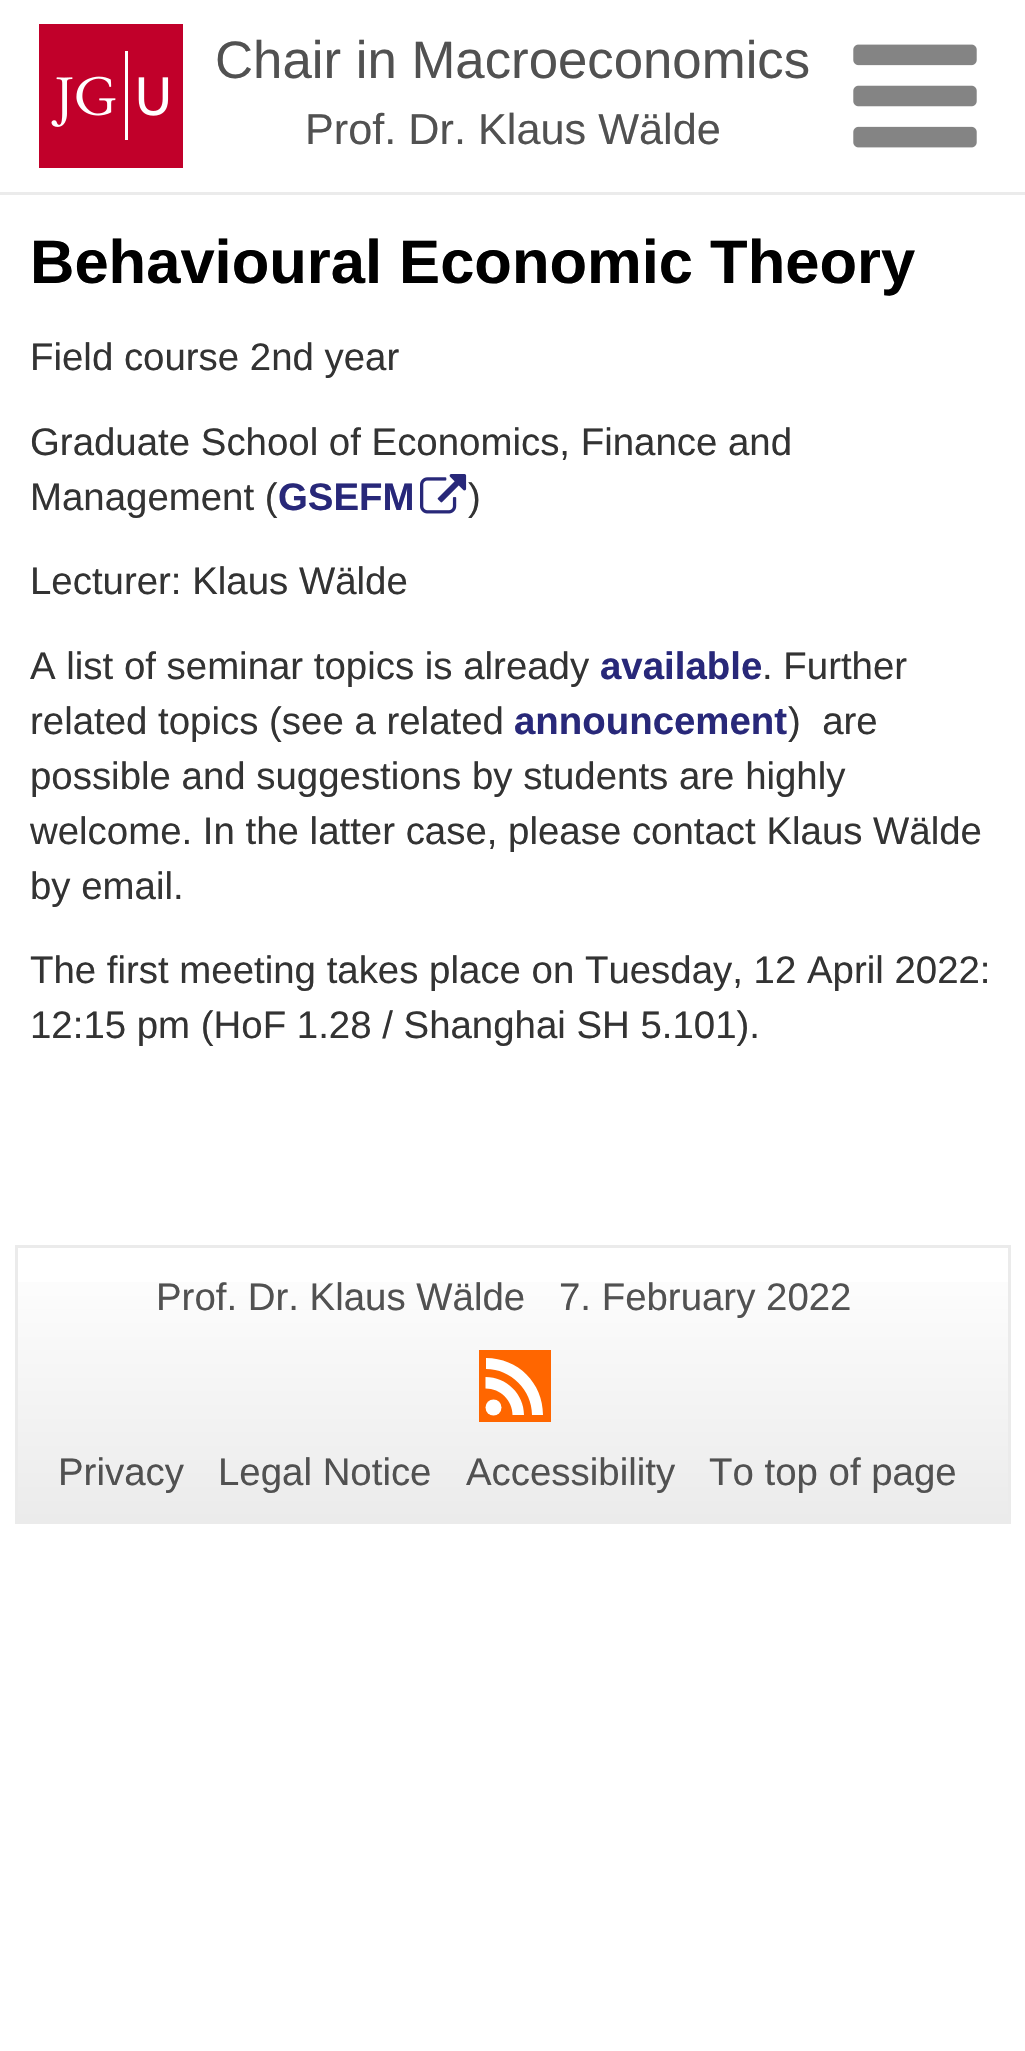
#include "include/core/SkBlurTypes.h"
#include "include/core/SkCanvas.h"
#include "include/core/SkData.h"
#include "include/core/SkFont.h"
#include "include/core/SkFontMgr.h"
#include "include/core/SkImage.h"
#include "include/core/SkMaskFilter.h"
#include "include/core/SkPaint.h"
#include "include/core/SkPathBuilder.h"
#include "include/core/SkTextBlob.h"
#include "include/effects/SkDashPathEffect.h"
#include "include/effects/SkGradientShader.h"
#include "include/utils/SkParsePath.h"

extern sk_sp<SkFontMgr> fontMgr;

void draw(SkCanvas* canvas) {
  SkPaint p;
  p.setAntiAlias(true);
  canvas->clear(SK_ColorWHITE);
  p.setColor(SkColorSetRGB(235, 235, 235));
  canvas->drawRect(SkRect::MakeLTRB(0, 192, 1025, 195), p);
  canvas->drawImageRect(SkImages::DeferredFromEncodedData(SkData::MakeFromFileName("images/1.png")), SkRect::MakeLTRB(39, 24, 183, 168), SkSamplingOptions());
  canvas->drawImageRect(SkImages::DeferredFromEncodedData(SkData::MakeFromFileName("images/2.png")), SkRect::MakeLTRB(853, 44, 977, 148), SkSamplingOptions());
  canvas->drawImageRect(SkImages::DeferredFromEncodedData(SkData::MakeFromFileName("images/3.png")), SkRect::MakeLTRB(420, 474, 467, 514), SkSamplingOptions());
  {
    const SkColor colors[] = {SkColorSetRGB(235, 235, 235), SK_ColorWHITE};
    const float stops[] = {0, 1};
    const SkPoint ends[] = {{513, 1521}, {513, 1248}};
    p.setShader(SkGradientShader::MakeLinear(ends, colors, stops, 2, SkTileMode::kClamp));
    p.setAlpha(255);
  }
  canvas->drawRect(SkRect::MakeLTRB(18, 1282, 1008, 1521), p);
  p.setStyle(SkPaint::kStroke_Style);
  p.setStrokeWidth(3);
  p.setShader(nullptr);
  p.setColor(SkColorSetRGB(235, 235, 235));
  canvas->drawRect(SkRect::MakeLTRB(16.5f, 1246.5f, 1009.5f, 1522.5f), p);
  p.setStyle(SkPaint::kFill_Style);
  p.setColor(SkColorSetRGB(255, 102, 0));
  canvas->drawRect(SkRect::MakeLTRB(479, 1350, 551, 1422), p);
  p.setColor(SK_ColorWHITE);
  canvas->drawCircle(493.5f, 1407.5f, 8, p);
  canvas->drawPath(SkPathBuilder().moveTo(524, 1415).lineTo(512.5f, 1415).cubicTo(512.5f, 1400.5f, 500.5f, 1388.5f, 485.5f, 1388.5f).lineTo(485.5f, 1377).cubicTo(506.5f, 1377, 524, 1394, 524, 1415).close().detach(), p);
  canvas->drawPath(SkPathBuilder().moveTo(532, 1415).cubicTo(532, 1390, 511, 1369, 486, 1369).lineTo(486, 1358).cubicTo(518, 1358, 543, 1383, 543, 1415).close().detach(), p);
  SkFont font1(fontMgr->matchFamilyStyle("Liberation Sans", SkFontStyle::Normal()), 52.75f);
  font1.setSubpixel(true);
  p.setColor(SkColorSetRGB(81, 81, 81));
  canvas->drawString("Chair in Macroeconomics", 215, 78, font1, p);
  SkFont font2(fontMgr->matchFamilyStyle("Liberation Sans", SkFontStyle::Normal()), 43.25f);
  font2.setSubpixel(true);
  canvas->drawString("Prof. Dr. Klaus Wälde", 305, 144, font2, p);
  SkFont font3(fontMgr->matchFamilyStyle("Liberation Sans", SkFontStyle::Bold()), 61.5f);
  font3.setSubpixel(true);
  p.setColor(SK_ColorBLACK);
  canvas->drawString("Behavioural Economic Theory", 30, 283, font3, p);
  SkFont font4(fontMgr->matchFamilyStyle("Liberation Sans", SkFontStyle::Normal()), 38.4f);
  font4.setSubpixel(true);
  p.setColor(SkColorSetRGB(51, 51, 51));
  canvas->drawString("Field course 2nd year", 30, 370, font4, p);
  canvas->drawString("Graduate School of Economics, Finance and", 30, 455, font4, p);
  canvas->drawString("Management (", 30, 510, font4, p);
  SkFont font5(fontMgr->matchFamilyStyle("Liberation Sans", SkFontStyle::Bold()), 38.4f);
  font5.setSubpixel(true);
  p.setColor(SkColorSetRGB(40, 40, 121));
  canvas->drawString("GSEFM", 278, 510, font5, p);
  p.setColor(SkColorSetRGB(51, 51, 51));
  canvas->drawString(")", 468, 510, font4, p);
  canvas->drawString("Lecturer: Klaus Wälde", 30, 594, font4, p);
  canvas->drawString("A list of seminar topics is already", 30, 679, font4, p);
  p.setColor(SkColorSetRGB(40, 40, 121));
  canvas->drawString("available", 600, 679, font5, p);
  p.setColor(SkColorSetRGB(51, 51, 51));
  canvas->drawString(". Further", 762, 679, font4, p);
  canvas->drawString("related topics (see a related", 30, 734, font4, p);
  p.setColor(SkColorSetRGB(40, 40, 121));
  canvas->drawString("announcement", 514, 734, font5, p);
  p.setColor(SkColorSetRGB(51, 51, 51));
  canvas->drawString(")  are", 788, 734, font4, p);
  canvas->drawString("possible and suggestions by students are highly", 30, 789, font4, p);
  canvas->drawString("welcome. In the latter case, please contact Klaus Wälde", 30, 844, font4, p);
  canvas->drawString("by email.", 30, 899, font4, p);
  canvas->drawString("The first meeting takes place on Tuesday, 12 April 2022:", 30, 983, font4, p);
  canvas->drawString("12:15 pm (HoF 1.28 / Shanghai SH 5.101).", 30, 1038, font4, p);
  p.setColor(SkColorSetRGB(81, 81, 81));
  canvas->drawString("Prof. Dr. Klaus Wälde", 156, 1310, font4, p);
  canvas->drawString("7. February 2022", 559, 1310, font4, p);
  canvas->drawString("Privacy", 58, 1485, font4, p);
  canvas->drawString("Legal Notice", 218, 1485, font4, p);
  canvas->drawString("Accessibility", 466, 1485, font4, p);
  canvas->drawString("To top of page", 709, 1485, font4, p);
}
